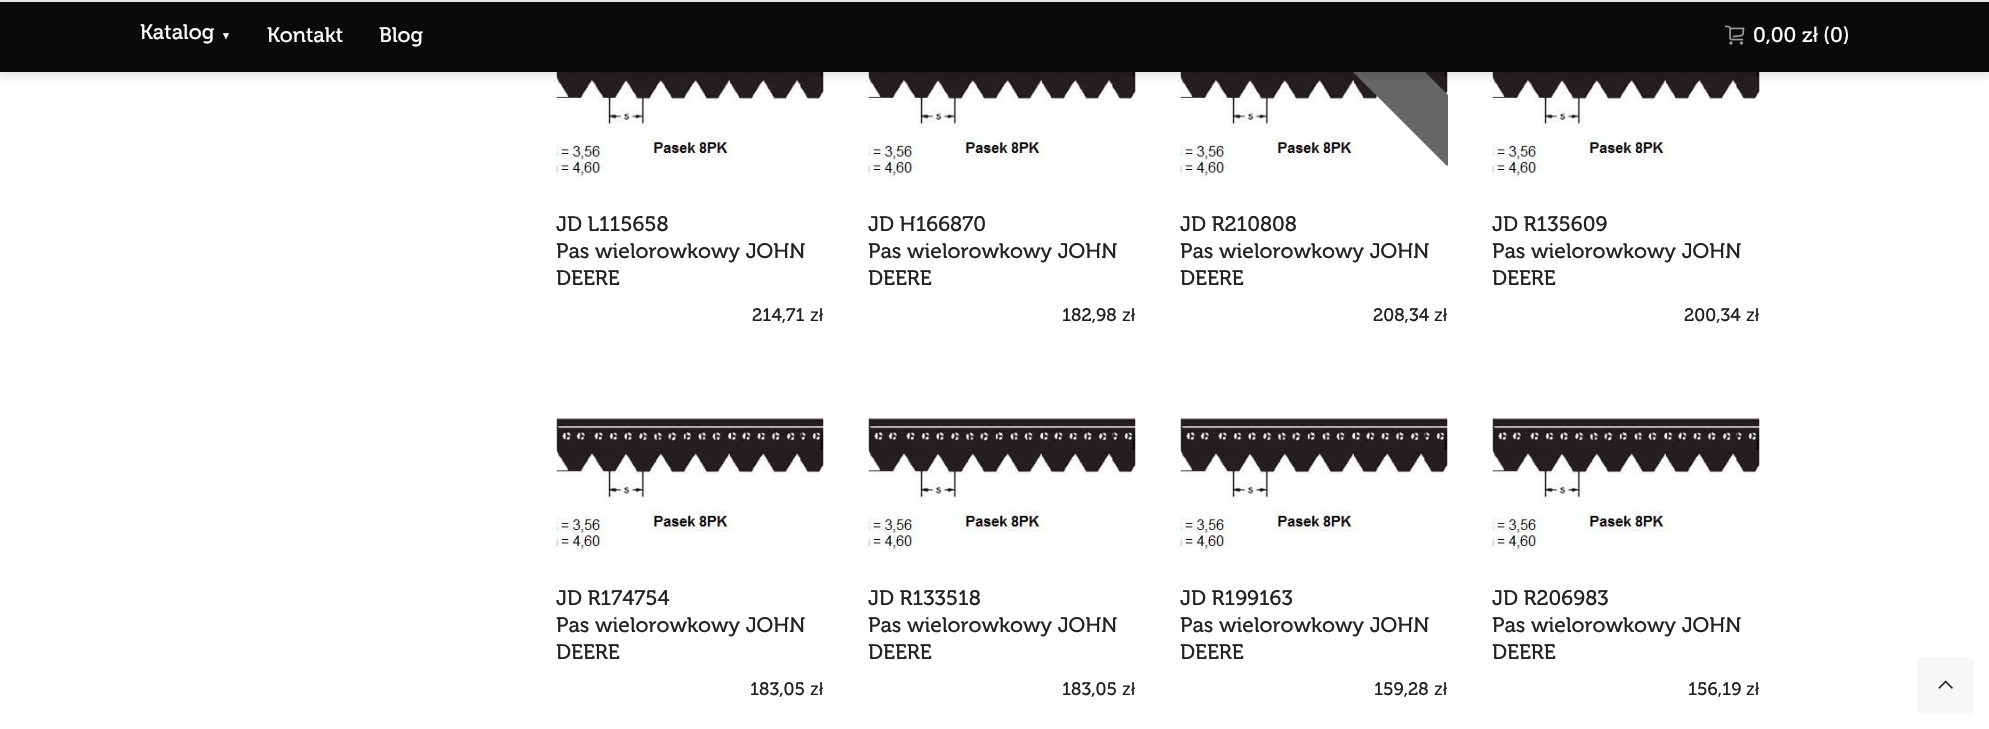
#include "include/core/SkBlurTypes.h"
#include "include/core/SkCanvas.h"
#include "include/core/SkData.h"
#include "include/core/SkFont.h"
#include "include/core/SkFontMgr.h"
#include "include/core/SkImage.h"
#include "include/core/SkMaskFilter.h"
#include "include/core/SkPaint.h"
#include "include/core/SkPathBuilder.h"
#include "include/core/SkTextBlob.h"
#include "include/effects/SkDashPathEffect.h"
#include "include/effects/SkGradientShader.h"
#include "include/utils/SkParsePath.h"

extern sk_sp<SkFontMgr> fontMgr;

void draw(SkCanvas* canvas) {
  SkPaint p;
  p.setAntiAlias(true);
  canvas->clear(SK_ColorWHITE);
  canvas->drawImageRect(SkImages::DeferredFromEncodedData(SkData::MakeFromFileName("images/2.png")), SkRect::MakeLTRB(556, 72, 824, 180), SkSamplingOptions());
  canvas->drawImageRect(SkImages::DeferredFromEncodedData(SkData::MakeFromFileName("images/2.png")), SkRect::MakeLTRB(868, 72, 1136, 180), SkSamplingOptions());
  canvas->drawImageRect(SkImages::DeferredFromEncodedData(SkData::MakeFromFileName("images/2.png")), SkRect::MakeLTRB(1180, 72, 1448, 180), SkSamplingOptions());
  canvas->save();
  canvas->clipRect(SkRect::MakeLTRB(1181, 30, 1448, 182));
  p.setColor(SkColorSetRGB(102, 102, 102));
  canvas->drawPath(SkPathBuilder().moveTo(1347, -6).lineTo(1483, 130).lineTo(1447, 166).lineTo(1311, 30).close().detach(), p);
  canvas->restore();
  canvas->drawImageRect(SkImages::DeferredFromEncodedData(SkData::MakeFromFileName("images/2.png")), SkRect::MakeLTRB(1492, 72, 1760, 180), SkSamplingOptions());
  p.setColor(SkColorSetARGB(26, 0, 0, 0));
  p.setMaskFilter(SkMaskFilter::MakeBlur(kNormal_SkBlurStyle, 4));
  canvas->drawRect(SkRect::MakeLTRB(0, 5, 1989, 77), p);
  p.setMaskFilter(nullptr);
  p.setColor(SkColorSetRGB(10, 10, 10));
  canvas->drawRect(SkRect::MakeLTRB(0, 2, 1989, 72), p);
  p.setColor(SkColorSetRGB(228, 228, 228));
  canvas->drawRect(SkRect::MakeLTRB(0, 0, 1989, 2), p);
  canvas->drawImageRect(SkImages::DeferredFromEncodedData(SkData::MakeFromFileName("images/1.png")), SkRect::MakeLTRB(1725, 25, 1745, 45), SkSamplingOptions());
  canvas->drawImageRect(SkImages::DeferredFromEncodedData(SkData::MakeFromFileName("images/3.png")), SkRect::MakeLTRB(556, 417, 824, 553), SkSamplingOptions());
  canvas->drawImageRect(SkImages::DeferredFromEncodedData(SkData::MakeFromFileName("images/3.png")), SkRect::MakeLTRB(868, 417, 1136, 553), SkSamplingOptions());
  canvas->drawImageRect(SkImages::DeferredFromEncodedData(SkData::MakeFromFileName("images/3.png")), SkRect::MakeLTRB(1180, 417, 1448, 553), SkSamplingOptions());
  canvas->drawImageRect(SkImages::DeferredFromEncodedData(SkData::MakeFromFileName("images/3.png")), SkRect::MakeLTRB(1492, 417, 1760, 553), SkSamplingOptions());
  p.setColor(SkColorSetRGB(247, 247, 247));
  canvas->drawRoundRect(SkRect::MakeLTRB(1917, 657, 1974, 714), 6, 6, p);
  canvas->drawImageRect(SkImages::DeferredFromEncodedData(SkData::MakeFromFileName("images/4.png")), SkRect::MakeLTRB(1938, 680, 1953, 689), SkSamplingOptions());
  SkFont font1(fontMgr->matchFamilyStyle("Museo", SkFontStyle::Normal()), 21);
  font1.setSubpixel(true);
  p.setColor(SK_ColorWHITE);
  canvas->drawString("Katalog", 140, 39, font1, p);
  SkFont font2(fontMgr->matchFamilyStyle("Liberation Sans", SkFontStyle::Normal()), 10);
  font2.setSubpixel(true);
  canvas->drawString("▼", 221, 39, font2, p);
  canvas->drawString("Kontakt", 267, 42, font1, p);
  canvas->drawString("Blog", 379, 42, font1, p);
  canvas->drawString("0,00 z", 1753, 42, font1, p);
  SkFont font3(fontMgr->matchFamilyStyle("Liberation Sans", SkFontStyle::Normal()), 21);
  font3.setSubpixel(true);
  canvas->drawString("ł", 1813, 42, font3, p);
  canvas->drawString("(0)", 1823, 42, font1, p);
  p.setColor(SkColorSetRGB(34, 34, 34));
  canvas->drawString("JD L115658", 556, 231, font1, p);
  canvas->drawString("Pas wielorowkowy JOHN", 556, 258, font1, p);
  canvas->drawString("DEERE", 556, 285, font1, p);
  SkFont font4(fontMgr->matchFamilyStyle("Museo", SkFontStyle::Normal()), 18);
  font4.setSubpixel(true);
  canvas->drawString("214,71", 752, 321, font4, p);
  SkFont font5(fontMgr->matchFamilyStyle("Liberation Sans", SkFontStyle::Normal()), 18);
  font5.setSubpixel(true);
  canvas->drawString("zł", 810, 321, font5, p);
  canvas->drawString("JD H166870", 868, 231, font1, p);
  canvas->drawString("Pas wielorowkowy JOHN", 868, 258, font1, p);
  canvas->drawString("DEERE", 868, 285, font1, p);
  canvas->drawString("182,98", 1062, 321, font4, p);
  canvas->drawString("zł", 1122, 321, font5, p);
  canvas->drawString("JD R210808", 1180, 231, font1, p);
  canvas->drawString("Pas wielorowkowy JOHN", 1180, 258, font1, p);
  canvas->drawString("DEERE", 1180, 285, font1, p);
  canvas->drawString("208,34", 1373, 321, font4, p);
  canvas->drawString("zł", 1434, 321, font5, p);
  canvas->drawString("JD R135609", 1492, 231, font1, p);
  canvas->drawString("Pas wielorowkowy JOHN", 1492, 258, font1, p);
  canvas->drawString("DEERE", 1492, 285, font1, p);
  canvas->drawString("200,34", 1684, 321, font4, p);
  canvas->drawString("zł", 1746, 321, font5, p);
  canvas->drawString("JD R174754", 556, 605, font1, p);
  canvas->drawString("Pas wielorowkowy JOHN", 556, 632, font1, p);
  canvas->drawString("DEERE", 556, 659, font1, p);
  canvas->drawString("183,05", 750, 695, font4, p);
  canvas->drawString("zł", 810, 695, font5, p);
  canvas->drawString("JD R133518", 868, 605, font1, p);
  canvas->drawString("Pas wielorowkowy JOHN", 868, 632, font1, p);
  canvas->drawString("DEERE", 868, 659, font1, p);
  canvas->drawString("183,05", 1062, 695, font4, p);
  canvas->drawString("zł", 1122, 695, font5, p);
  canvas->drawString("JD R199163", 1180, 605, font1, p);
  canvas->drawString("Pas wielorowkowy JOHN", 1180, 632, font1, p);
  canvas->drawString("DEERE", 1180, 659, font1, p);
  canvas->drawString("159,28", 1374, 695, font4, p);
  canvas->drawString("zł", 1434, 695, font5, p);
  canvas->drawString("JD R206983", 1492, 605, font1, p);
  canvas->drawString("Pas wielorowkowy JOHN", 1492, 632, font1, p);
  canvas->drawString("DEERE", 1492, 659, font1, p);
  canvas->drawString("156,19", 1688, 695, font4, p);
  canvas->drawString("zł", 1746, 695, font5, p);
}
